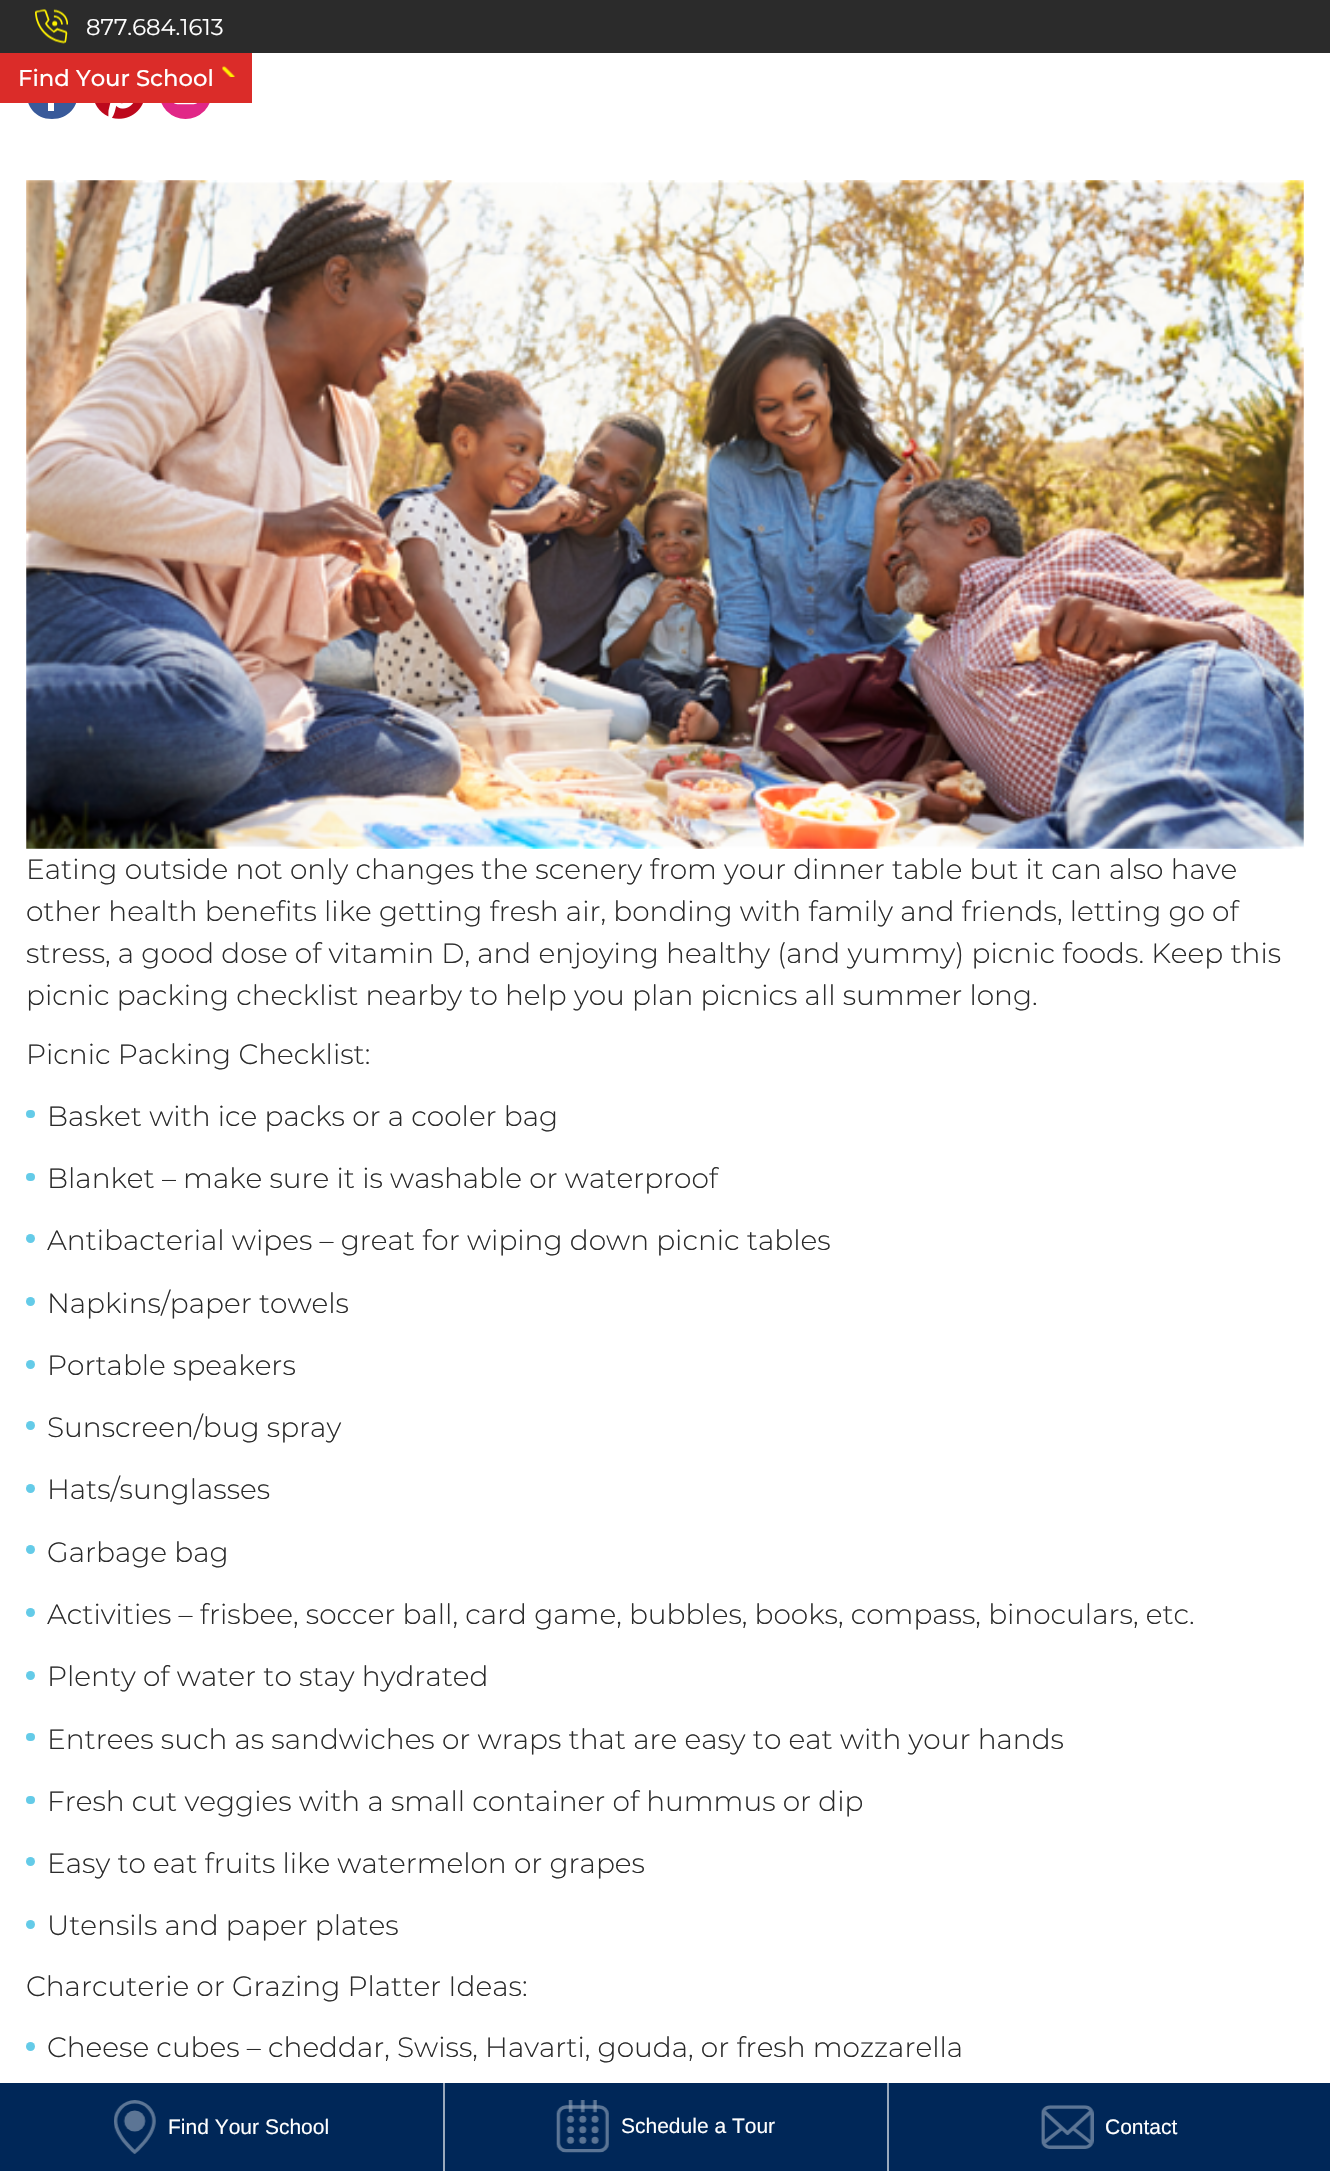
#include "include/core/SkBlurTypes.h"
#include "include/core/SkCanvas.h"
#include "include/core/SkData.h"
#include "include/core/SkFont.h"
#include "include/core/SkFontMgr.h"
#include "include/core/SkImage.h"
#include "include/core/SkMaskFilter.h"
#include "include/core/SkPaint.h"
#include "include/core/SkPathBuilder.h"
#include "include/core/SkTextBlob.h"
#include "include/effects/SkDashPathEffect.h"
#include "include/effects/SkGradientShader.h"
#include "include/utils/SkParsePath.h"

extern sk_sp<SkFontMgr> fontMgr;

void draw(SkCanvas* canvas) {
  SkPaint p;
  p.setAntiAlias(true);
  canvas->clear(SK_ColorWHITE);
  p.setColor(SkColorSetRGB(43, 43, 43));
  canvas->drawRect(SkRect::MakeLTRB(0, 0, 1330, 53), p);
  canvas->drawImageRect(SkImages::DeferredFromEncodedData(SkData::MakeFromFileName("images/1.png")), SkRect::MakeLTRB(35, 9, 68, 44), SkSamplingOptions());
  p.setColor(SkColorSetRGB(57, 90, 154));
  canvas->drawPath(SkPathBuilder().moveTo(52, 66).cubicTo(18, 66, 18, 119, 52, 119).cubicTo(87, 119, 87, 66, 52, 66).close().moveTo(61, 79).cubicTo(54, 79, 54, 80, 54, 87).lineTo(60, 87).lineTo(60, 93).lineTo(54, 93).lineTo(54, 111).lineTo(48, 111).lineTo(48, 93).lineTo(42, 93).lineTo(42, 87).lineTo(48, 87).cubicTo(48, 75, 48, 74, 61, 74).close().detach(), p);
  p.setColor(SkColorSetRGB(219, 44, 41));
  canvas->drawRect(SkRect::MakeLTRB(0, 53, 252, 103), p);
  canvas->drawImageRect(SkImages::DeferredFromEncodedData(SkData::MakeFromFileName("images/2.png")), SkRect::MakeLTRB(222, 66, 235, 77), SkSamplingOptions());
  canvas->drawImageRect(SkImages::DeferredFromEncodedData(SkData::MakeFromFileName("images/3.png")), SkRect::MakeLTRB(95, 103, 143, 119), SkSamplingOptions());
  canvas->drawImageRect(SkImages::DeferredFromEncodedData(SkData::MakeFromFileName("images/4.png")), SkRect::MakeLTRB(161, 103, 210, 119), SkSamplingOptions());
  canvas->drawImageRect(SkImages::DeferredFromEncodedData(SkData::MakeFromFileName("images/5.png")), SkRect::MakeLTRB(26, 180, 1304, 849), SkSamplingOptions());
  p.setColor(SkColorSetRGB(100, 203, 232));
  canvas->drawRoundRect(SkRect::MakeLTRB(26, 1110, 35, 1118), 4, 4, p);
  canvas->drawRoundRect(SkRect::MakeLTRB(26, 1173, 35, 1181), 4, 4, p);
  canvas->drawCircle(30.5f, 1238.5f, 4.5f, p);
  canvas->drawCircle(30.5f, 1301.5f, 4.5f, p);
  canvas->drawCircle(30.5f, 1364.5f, 4.5f, p);
  canvas->drawCircle(30.5f, 1425.5f, 4.5f, p);
  canvas->drawCircle(30.5f, 1488.5f, 4.5f, p);
  canvas->drawCircle(30.5f, 1549.5f, 4.5f, p);
  canvas->drawCircle(30.5f, 1612.5f, 4.5f, p);
  canvas->drawCircle(30.5f, 1675.5f, 4.5f, p);
  canvas->drawRoundRect(SkRect::MakeLTRB(26, 1733, 35, 1741), 4, 4, p);
  canvas->drawRoundRect(SkRect::MakeLTRB(26, 1796, 35, 1804), 4, 4, p);
  canvas->drawCircle(30.5f, 1861.5f, 4.5f, p);
  canvas->drawCircle(30.5f, 1924.5f, 4.5f, p);
  canvas->drawCircle(30.5f, 2046.5f, 4.5f, p);
  p.setColor(SkColorSetRGB(0, 39, 88));
  canvas->drawRect(SkRect::MakeLTRB(0, 2083, 443, 2171), p);
  canvas->drawImageRect(SkImages::DeferredFromEncodedData(SkData::MakeFromFileName("images/6.png")), SkRect::MakeLTRB(114, 2100, 156, 2154), SkSamplingOptions());
  canvas->drawRect(SkRect::MakeLTRB(445, 2083, 887, 2171), p);
  p.setColor(SkColorSetRGB(153, 169, 188));
  canvas->drawRect(SkRect::MakeLTRB(443, 2083, 445, 2171), p);
  canvas->drawImageRect(SkImages::DeferredFromEncodedData(SkData::MakeFromFileName("images/7.png")), SkRect::MakeLTRB(556, 2100, 609, 2153), SkSamplingOptions());
  p.setColor(SkColorSetRGB(0, 39, 88));
  canvas->drawRect(SkRect::MakeLTRB(889, 2083, 1330, 2171), p);
  p.setColor(SkColorSetRGB(153, 169, 188));
  canvas->drawRect(SkRect::MakeLTRB(887, 2083, 889, 2171), p);
  canvas->drawImageRect(SkImages::DeferredFromEncodedData(SkData::MakeFromFileName("images/8.png")), SkRect::MakeLTRB(1041, 2105, 1094, 2149), SkSamplingOptions());
  SkFont font1(fontMgr->matchFamilyStyle("Montserrat", SkFontStyle::Normal()), 22.75f);
  font1.setSubpixel(true);
  p.setColor(SK_ColorWHITE);
  canvas->drawString("877.684.1613", 86, 35, font1, p);
  SkFont font2(fontMgr->matchFamilyStyle("Montserrat", SkFontStyle(500, SkFontStyle::kNormal_Width, SkFontStyle::kUpright_Slant)), 22.75f);
  font2.setSubpixel(true);
  canvas->drawString("Find Your School", 18, 86, font2, p);
  SkFont font3(fontMgr->matchFamilyStyle("Montserrat", SkFontStyle(300, SkFontStyle::kNormal_Width, SkFontStyle::kUpright_Slant)), 28);
  font3.setSubpixel(true);
  p.setColor(SkColorSetRGB(43, 43, 43));
  canvas->drawString("Eating outside not only changes the scenery from your dinner table but it can also have", 26, 879, font3, p);
  canvas->drawString("other health benefits like getting fresh air, bonding with family and friends, letting go of", 26, 921, font3, p);
  canvas->drawString("stress, a good dose of vitamin D, and enjoying healthy (and yummy) picnic foods. Keep this", 26, 963, font3, p);
  canvas->drawString("picnic packing checklist nearby to help you plan picnics all summer long.", 26, 1005, font3, p);
  canvas->drawString("Picnic Packing Checklist:", 26, 1064, font3, p);
  canvas->drawString("Basket with ice packs or a cooler bag", 47, 1126, font3, p);
  canvas->drawString("Blanket – make sure it is washable or waterproof", 47, 1188, font3, p);
  canvas->drawString("Antibacterial wipes – great for wiping down picnic tables", 47, 1250, font3, p);
  canvas->drawString("Napkins/paper towels", 47, 1313, font3, p);
  canvas->drawString("Portable speakers", 47, 1375, font3, p);
  canvas->drawString("Sunscreen/bug spray", 47, 1437, font3, p);
  canvas->drawString("Hats/sunglasses", 47, 1499, font3, p);
  canvas->drawString("Garbage bag", 47, 1562, font3, p);
  canvas->drawString("Activities – frisbee, soccer ball, card game, bubbles, books, compass, binoculars, etc.", 47, 1624, font3, p);
  canvas->drawString("Plenty of water to stay hydrated", 47, 1686, font3, p);
  canvas->drawString("Entrees such as sandwiches or wraps that are easy to eat with your hands", 47, 1749, font3, p);
  canvas->drawString("Fresh cut veggies with a small container of hummus or dip", 47, 1811, font3, p);
  canvas->drawString("Easy to eat fruits like watermelon or grapes", 47, 1873, font3, p);
  canvas->drawString("Utensils and paper plates", 47, 1935, font3, p);
  canvas->drawString("Charcuterie or Grazing Platter Ideas:", 26, 1996, font3, p);
  canvas->drawString("Cheese cubes – cheddar, Swiss, Havarti, gouda, or fresh mozzarella", 47, 2057, font3, p);
  SkFont font4(fontMgr->matchFamilyStyle("Liberation Sans", SkFontStyle::Normal()), 21);
  font4.setSubpixel(true);
  p.setColor(SK_ColorWHITE);
  canvas->drawString("Find Your School", 168, 2134, font4, p);
  canvas->drawString("Schedule a Tour", 621, 2133, font4, p);
  canvas->drawString("Contact", 1105, 2134, font4, p);
}
